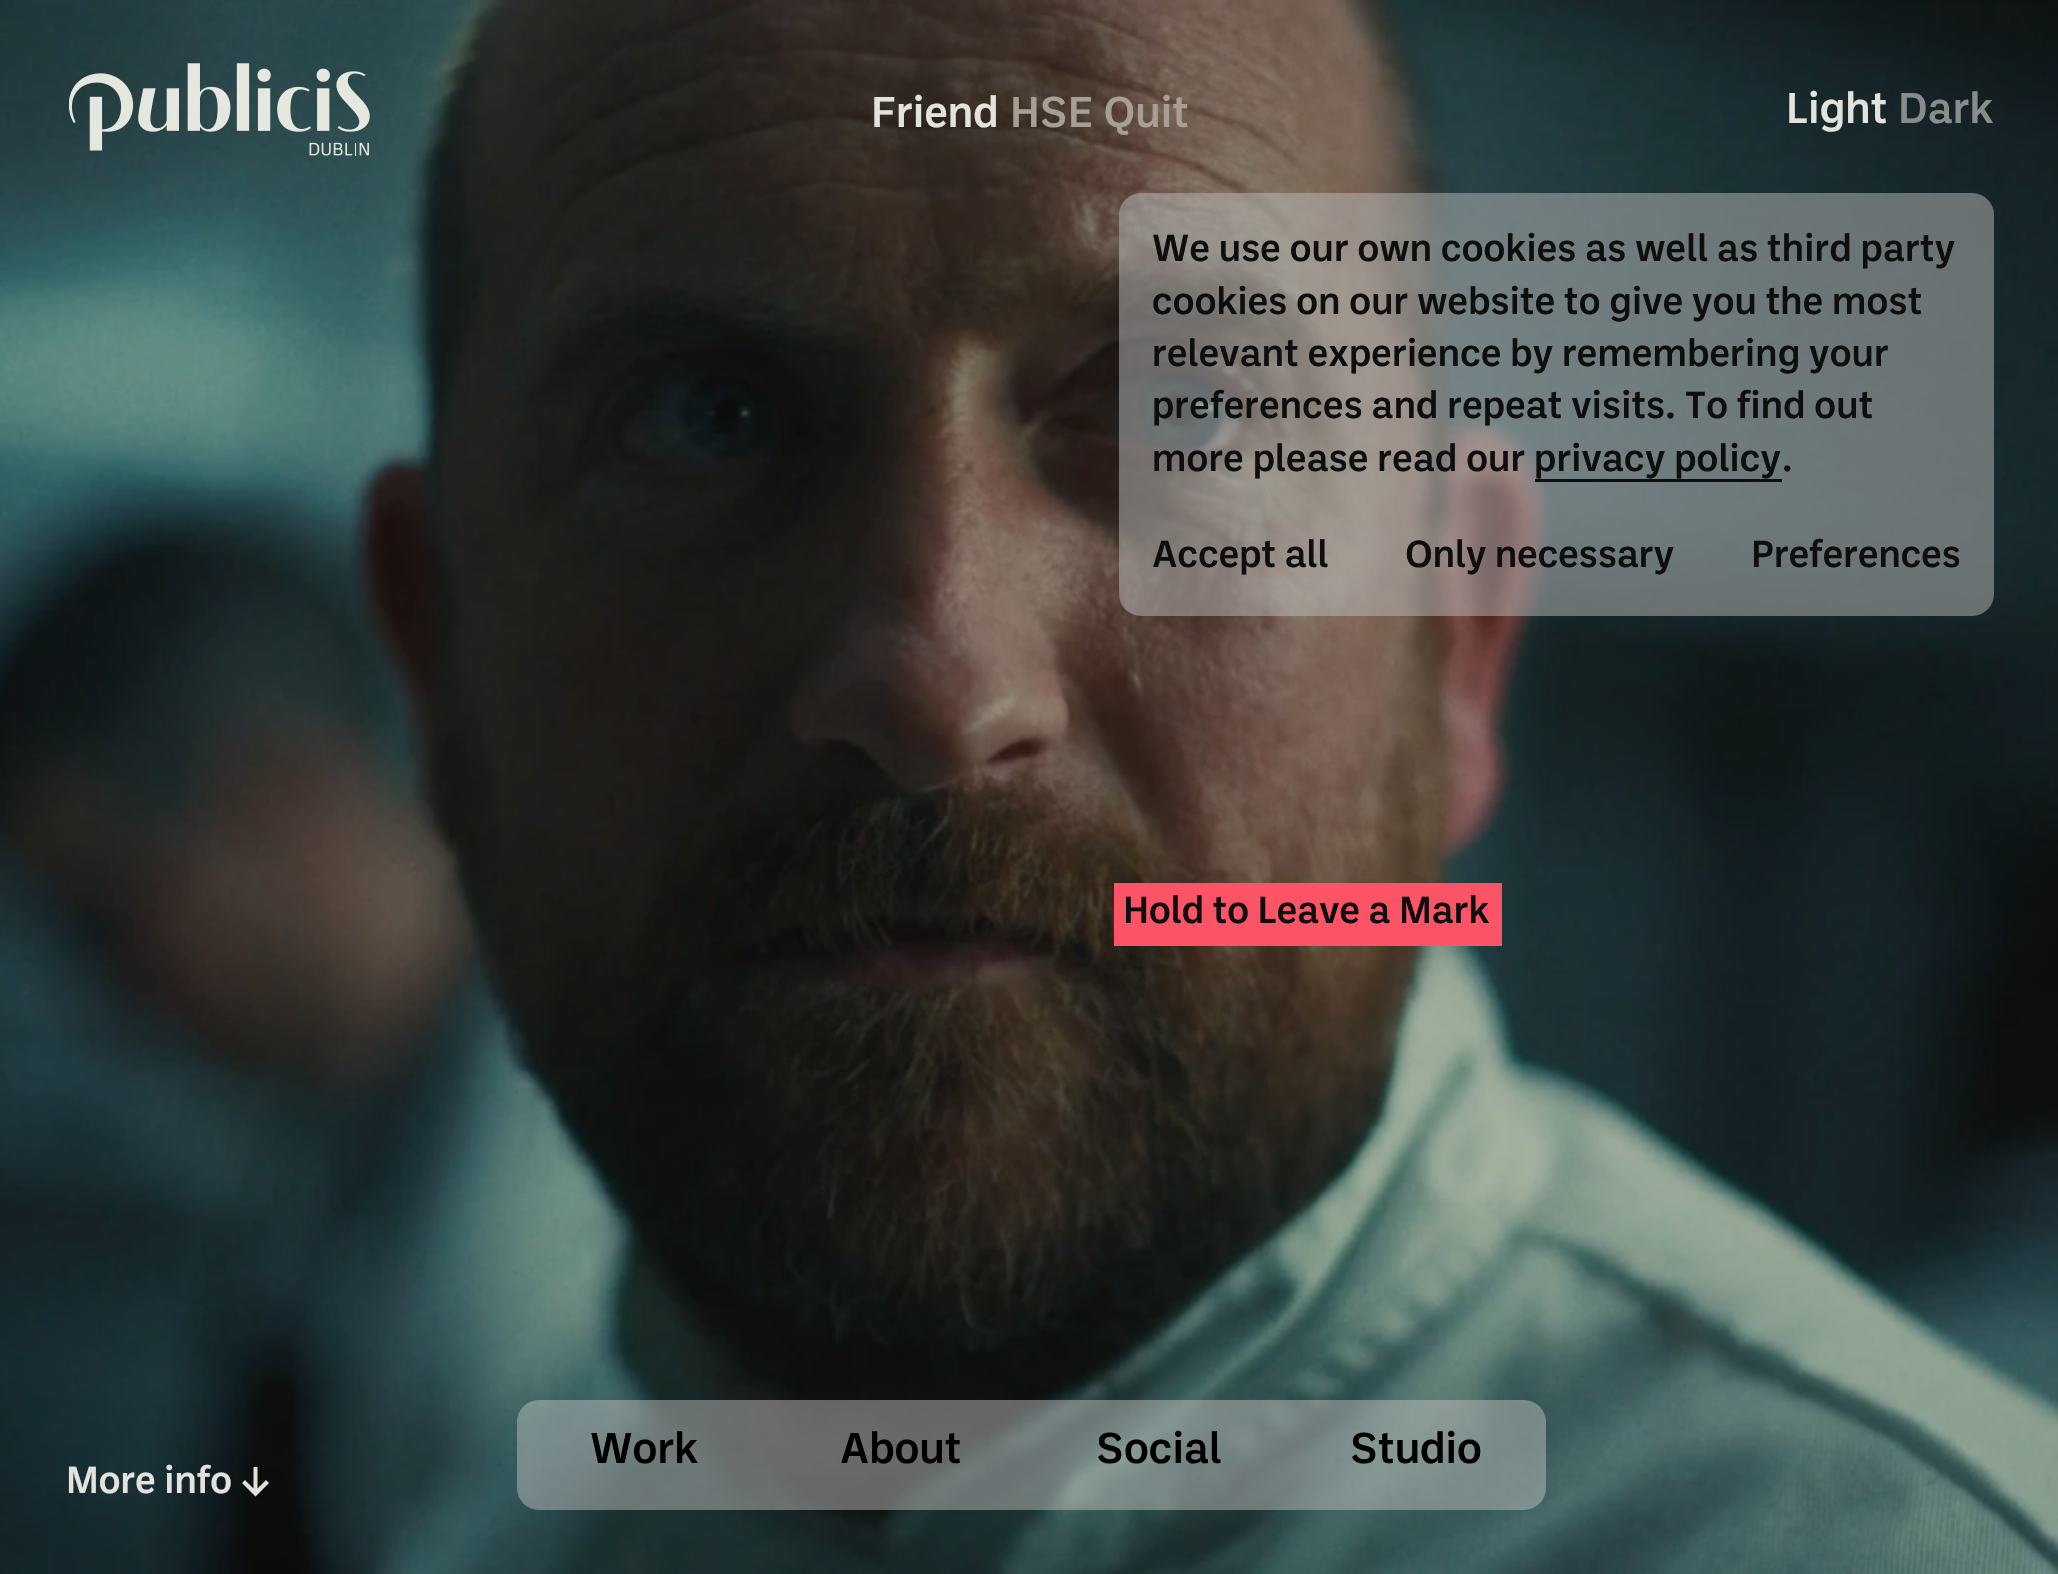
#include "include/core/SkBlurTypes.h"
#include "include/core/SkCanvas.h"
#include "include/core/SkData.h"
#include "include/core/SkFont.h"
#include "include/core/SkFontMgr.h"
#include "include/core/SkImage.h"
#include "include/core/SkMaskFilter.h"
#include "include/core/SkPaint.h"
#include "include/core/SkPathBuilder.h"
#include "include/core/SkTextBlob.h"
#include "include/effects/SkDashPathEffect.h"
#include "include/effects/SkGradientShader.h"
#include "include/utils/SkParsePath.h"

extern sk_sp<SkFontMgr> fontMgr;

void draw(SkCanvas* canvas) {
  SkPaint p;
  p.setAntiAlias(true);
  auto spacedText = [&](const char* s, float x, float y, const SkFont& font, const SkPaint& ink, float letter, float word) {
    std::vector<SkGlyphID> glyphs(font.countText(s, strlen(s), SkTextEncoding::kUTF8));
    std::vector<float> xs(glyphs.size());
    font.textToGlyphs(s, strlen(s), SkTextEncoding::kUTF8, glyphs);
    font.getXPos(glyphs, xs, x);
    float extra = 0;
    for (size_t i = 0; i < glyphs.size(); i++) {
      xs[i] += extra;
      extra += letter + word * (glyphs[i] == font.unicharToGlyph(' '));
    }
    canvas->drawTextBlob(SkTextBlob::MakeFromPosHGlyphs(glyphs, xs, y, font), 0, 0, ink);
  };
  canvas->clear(SK_ColorWHITE);
  canvas->drawImageRect(SkImages::DeferredFromEncodedData(SkData::MakeFromFileName("images/2.png")), SkRect::MakeLTRB(0, 0, 2058, 1574), SkSamplingOptions());
  canvas->drawImageRect(SkImages::DeferredFromEncodedData(SkData::MakeFromFileName("images/1.png")), SkRect::MakeLTRB(69, 63, 370, 156), SkSamplingOptions());
  p.setColor(SkColorSetARGB(128, 188, 188, 188));
  canvas->drawRoundRect(SkRect::MakeLTRB(1119, 193, 1994, 616), 22, 22, p);
  p.setColor(SkColorSetRGB(14, 14, 14));
  canvas->drawRect(SkRect::MakeLTRB(1535, 479, 1782, 482), p);
  p.setColor(SkColorSetRGB(252, 84, 103));
  canvas->drawRect(SkRect::MakeLTRB(1114, 883, 1502, 946), p);
  p.setColor(SkColorSetARGB(230, 250, 248, 238));
  canvas->drawPath(SkPathBuilder().moveTo(266, 1480).lineTo(269, 1483).lineTo(255.5f, 1496.5f).lineTo(242, 1483).lineTo(245, 1480).lineTo(253.5f, 1488.5f).lineTo(253.5f, 1467).lineTo(257.5f, 1467).lineTo(257.5f, 1488.5f).close().detach(), p);
  p.setColor(SkColorSetARGB(128, 188, 188, 188));
  canvas->drawRoundRect(SkRect::MakeLTRB(517, 1400, 1546, 1510), 22, 22, p);
  SkFont font1(fontMgr->matchFamilyStyle("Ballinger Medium", SkFontStyle(500, SkFontStyle::kNormal_Width, SkFontStyle::kUpright_Slant)), 44);
  font1.setSubpixel(true);
  p.setColor(SkColorSetRGB(227, 227, 219));
  canvas->drawString("Friend", 871, 127, font1, p);
  p.setColor(SkColorSetRGB(168, 158, 148));
  canvas->drawString("HSE Quit", 1010, 127, font1, p);
  p.setColor(SkColorSetRGB(227, 227, 219));
  canvas->drawString("Light", 1786, 123, font1, p);
  p.setColor(SkColorSetRGB(135, 141, 138));
  canvas->drawString("Dark", 1898, 123, font1, p);
  SkFont font2(fontMgr->matchFamilyStyle("Ballinger Medium", SkFontStyle(500, SkFontStyle::kNormal_Width, SkFontStyle::kUpright_Slant)), 38.5f);
  font2.setSubpixel(true);
  p.setColor(SkColorSetRGB(14, 14, 14));
  spacedText("We use our own cookies as well as third party", 1152, 261, font2, p, 0.15f, 0);
  spacedText("cookies on our website to give you the most", 1152, 314, font2, p, 0.15f, 0);
  spacedText("relevant experience by remembering your", 1152, 366, font2, p, 0.15f, 0);
  spacedText("preferences and repeat visits. To find out", 1152, 418, font2, p, 0.15f, 0);
  spacedText("more please read our privacy policy", 1152, 471, font2, p, 0.15f, 0);
  spacedText(".", 1782, 471, font2, p, 0.15f, 0);
  canvas->drawString("Accept all", 1152, 567, font2, p);
  canvas->drawString("Only necessary", 1405, 567, font2, p);
  canvas->drawString("Preferences", 1751, 567, font2, p);
  canvas->drawString("Hold to Leave a Mark", 1123, 923, font2, p);
  p.setColor(SkColorSetRGB(227, 227, 219));
  canvas->drawString("More info", 66, 1493, font2, p);
  p.setColor(SK_ColorBLACK);
  canvas->drawString("Work", 590, 1463, font1, p);
  canvas->drawString("About", 840, 1463, font1, p);
  canvas->drawString("Social", 1096, 1463, font1, p);
  canvas->drawString("Studio", 1350, 1463, font1, p);
}
